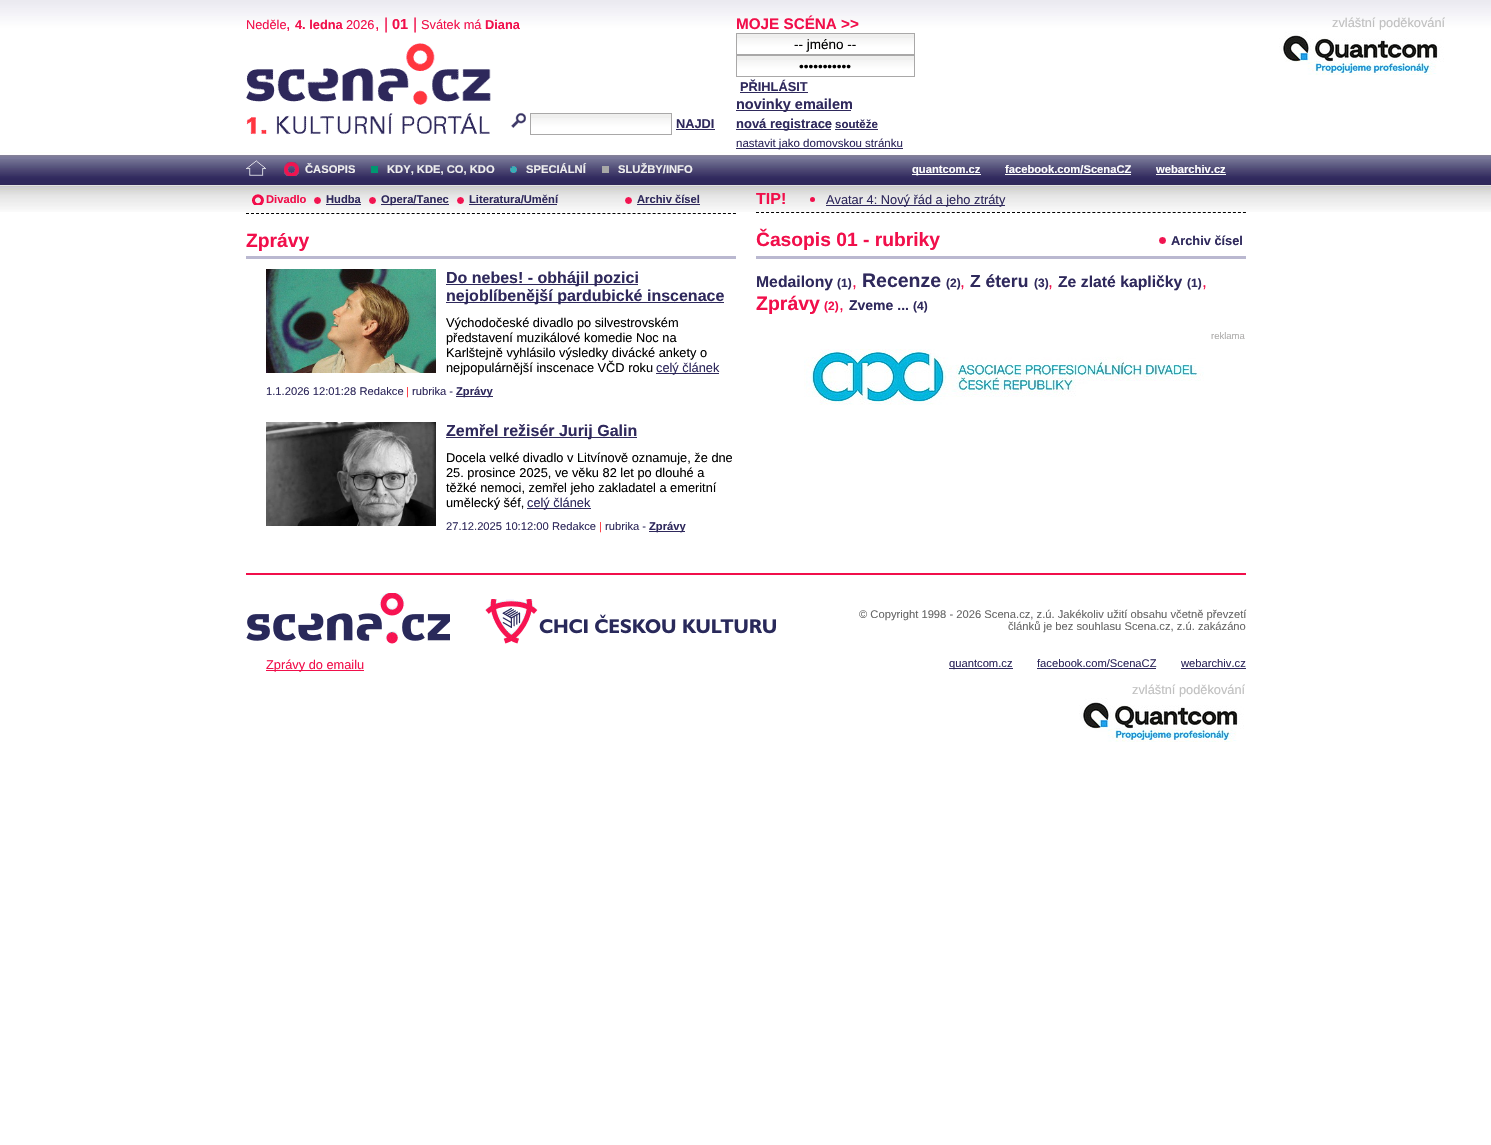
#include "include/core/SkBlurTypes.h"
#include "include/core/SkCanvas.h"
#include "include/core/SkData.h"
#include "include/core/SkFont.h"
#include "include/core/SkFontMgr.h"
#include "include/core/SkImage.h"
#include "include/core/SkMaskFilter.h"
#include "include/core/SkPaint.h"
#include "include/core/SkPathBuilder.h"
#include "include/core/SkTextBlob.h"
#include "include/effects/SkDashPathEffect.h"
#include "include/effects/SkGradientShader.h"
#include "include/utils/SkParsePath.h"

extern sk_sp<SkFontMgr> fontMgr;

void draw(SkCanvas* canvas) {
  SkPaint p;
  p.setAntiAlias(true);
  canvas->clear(SK_ColorWHITE);
  canvas->drawImageRect(SkImages::DeferredFromEncodedData(SkData::MakeFromFileName("images/1.png")), SkRect::MakeLTRB(0, 0, 1491, 212), SkSamplingOptions());
  canvas->drawImageRect(SkImages::DeferredFromEncodedData(SkData::MakeFromFileName("images/2.png")), SkRect::MakeLTRB(246, 43, 491, 135), SkSamplingOptions());
  canvas->drawImageRect(SkImages::DeferredFromEncodedData(SkData::MakeFromFileName("images/3.png")), SkRect::MakeLTRB(511, 112, 526, 128), SkSamplingOptions());
  p.setColor(SkColorSetRGB(239, 239, 238));
  canvas->drawRect(SkRect::MakeLTRB(531, 114, 671, 118), p);
  canvas->drawImageRect(SkImages::DeferredFromEncodedData(SkData::MakeFromFileName("images/4.png")), SkRect::MakeLTRB(531, 118, 671, 134), SkSamplingOptions());
  p.setStyle(SkPaint::kStroke_Style);
  p.setStrokeWidth(1);
  p.setColor(SkColorSetRGB(169, 168, 168));
  canvas->drawRect(SkRect::MakeLTRB(530.5f, 113.5f, 671.5f, 134.5f), p);
  p.setStyle(SkPaint::kFill_Style);
  p.setColor(SkColorSetRGB(47, 41, 92));
  canvas->drawRect(SkRect::MakeLTRB(676, 129, 715, 130), p);
  p.setColor(SkColorSetRGB(239, 239, 238));
  canvas->drawRect(SkRect::MakeLTRB(737, 34, 914, 38), p);
  canvas->drawImageRect(SkImages::DeferredFromEncodedData(SkData::MakeFromFileName("images/5.png")), SkRect::MakeLTRB(737, 38, 914, 54), SkSamplingOptions());
  p.setStyle(SkPaint::kStroke_Style);
  p.setColor(SkColorSetRGB(169, 168, 168));
  canvas->drawRect(SkRect::MakeLTRB(736.5f, 33.5f, 914.5f, 54.5f), p);
  p.setStyle(SkPaint::kFill_Style);
  p.setColor(SkColorSetRGB(239, 239, 238));
  canvas->drawRect(SkRect::MakeLTRB(737, 56, 914, 60), p);
  canvas->drawImageRect(SkImages::DeferredFromEncodedData(SkData::MakeFromFileName("images/5.png")), SkRect::MakeLTRB(737, 60, 914, 76), SkSamplingOptions());
  p.setStyle(SkPaint::kStroke_Style);
  p.setColor(SkColorSetRGB(169, 168, 168));
  canvas->drawRect(SkRect::MakeLTRB(736.5f, 55.5f, 914.5f, 76.5f), p);
  p.setStyle(SkPaint::kFill_Style);
  p.setColor(SkColorSetRGB(47, 41, 92));
  canvas->drawRect(SkRect::MakeLTRB(740, 92, 808, 93), p);
  canvas->drawRect(SkRect::MakeLTRB(736, 110, 851, 111), p);
  canvas->drawRect(SkRect::MakeLTRB(736, 129, 831, 130), p);
  canvas->drawRect(SkRect::MakeLTRB(835, 129, 878, 130), p);
  canvas->drawRect(SkRect::MakeLTRB(736, 148, 903, 149), p);
  canvas->drawImageRect(SkImages::DeferredFromEncodedData(SkData::MakeFromFileName("images/6.png")), SkRect::MakeLTRB(1279, 31, 1444, 75), SkSamplingOptions());
  canvas->drawImageRect(SkImages::DeferredFromEncodedData(SkData::MakeFromFileName("images/7.png")), SkRect::MakeLTRB(246, 160, 266, 176), SkSamplingOptions());
  canvas->drawImageRect(SkImages::DeferredFromEncodedData(SkData::MakeFromFileName("images/8.png")), SkRect::MakeLTRB(284, 162, 299, 176), SkSamplingOptions());
  p.setColor(SkColorSetRGB(0, 151, 112));
  canvas->drawRect(SkRect::MakeLTRB(371, 166, 378, 173), p);
  canvas->drawImageRect(SkImages::DeferredFromEncodedData(SkData::MakeFromFileName("images/9.png")), SkRect::MakeLTRB(510, 166, 517, 173), SkSamplingOptions());
  p.setColor(SkColorSetRGB(168, 168, 167));
  canvas->drawRect(SkRect::MakeLTRB(602, 166, 609, 173), p);
  p.setColor(SK_ColorWHITE);
  canvas->drawRect(SkRect::MakeLTRB(912, 174, 981, 175), p);
  canvas->drawRect(SkRect::MakeLTRB(1005, 174, 1131, 175), p);
  canvas->drawRect(SkRect::MakeLTRB(1156, 174, 1226, 175), p);
  p.setStyle(SkPaint::kStroke_Style);
  p.setColor(SK_ColorBLACK);
  p.setPathEffect(SkDashPathEffect::Make({{3, 2.02f}}, 0));
  canvas->drawPath(SkPathBuilder().moveTo(246, 213.5f).lineTo(736, 213.5f).detach(), p);
  p.setPathEffect(nullptr);
  canvas->drawImageRect(SkImages::DeferredFromEncodedData(SkData::MakeFromFileName("images/10.png")), SkRect::MakeLTRB(252, 194, 264, 205), SkSamplingOptions());
  canvas->drawImageRect(SkImages::DeferredFromEncodedData(SkData::MakeFromFileName("images/11.png")), SkRect::MakeLTRB(314, 197, 321, 204), SkSamplingOptions());
  p.setStyle(SkPaint::kFill_Style);
  p.setColor(SkColorSetRGB(47, 41, 92));
  canvas->drawRect(SkRect::MakeLTRB(326, 204, 361, 205), p);
  canvas->drawImageRect(SkImages::DeferredFromEncodedData(SkData::MakeFromFileName("images/11.png")), SkRect::MakeLTRB(369, 197, 376, 204), SkSamplingOptions());
  canvas->drawRect(SkRect::MakeLTRB(381, 204, 449, 205), p);
  canvas->drawImageRect(SkImages::DeferredFromEncodedData(SkData::MakeFromFileName("images/11.png")), SkRect::MakeLTRB(457, 197, 464, 204), SkSamplingOptions());
  canvas->drawRect(SkRect::MakeLTRB(469, 204, 557, 205), p);
  canvas->drawImageRect(SkImages::DeferredFromEncodedData(SkData::MakeFromFileName("images/11.png")), SkRect::MakeLTRB(625, 197, 632, 204), SkSamplingOptions());
  canvas->drawRect(SkRect::MakeLTRB(637, 204, 700, 205), p);
  p.setColor(SkColorSetRGB(186, 184, 208));
  canvas->drawRect(SkRect::MakeLTRB(246, 256, 736, 259), p);
  canvas->drawImageRect(SkImages::DeferredFromEncodedData(SkData::MakeFromFileName("images/12.png")), SkRect::MakeLTRB(266, 269, 436, 373), SkSamplingOptions());
  p.setColor(SkColorSetRGB(47, 41, 92));
  canvas->drawRect(SkRect::MakeLTRB(446, 284, 638, 285), p);
  canvas->drawRect(SkRect::MakeLTRB(446, 302, 724, 303), p);
  canvas->drawRect(SkRect::MakeLTRB(656, 373, 719, 374), p);
  canvas->drawRect(SkRect::MakeLTRB(456, 396, 493, 397), p);
  canvas->drawImageRect(SkImages::DeferredFromEncodedData(SkData::MakeFromFileName("images/13.png")), SkRect::MakeLTRB(266, 422, 436, 526), SkSamplingOptions());
  canvas->drawRect(SkRect::MakeLTRB(446, 437, 637, 438), p);
  canvas->drawRect(SkRect::MakeLTRB(527, 508, 591, 509), p);
  canvas->drawRect(SkRect::MakeLTRB(649, 531, 685, 532), p);
  p.setStyle(SkPaint::kStroke_Style);
  p.setColor(SK_ColorBLACK);
  p.setPathEffect(SkDashPathEffect::Make({{3, 2.02f}}, 0));
  canvas->drawPath(SkPathBuilder().moveTo(756, 212.5f).lineTo(1246, 212.5f).detach(), p);
  p.setPathEffect(nullptr);
  p.setStyle(SkPaint::kFill_Style);
  p.setColor(SkColorSetRGB(241, 15, 75));
  canvas->drawCircle(812.5f, 199.5f, 2.5f, p);
  p.setColor(SkColorSetRGB(47, 41, 92));
  canvas->drawRect(SkRect::MakeLTRB(826, 205, 1005, 206), p);
  p.setColor(SkColorSetRGB(186, 184, 208));
  canvas->drawRect(SkRect::MakeLTRB(756, 256, 1246, 259), p);
  canvas->drawImageRect(SkImages::DeferredFromEncodedData(SkData::MakeFromFileName("images/14.png")), SkRect::MakeLTRB(1159, 237, 1166, 244), SkSamplingOptions());
  canvas->drawImageRect(SkImages::DeferredFromEncodedData(SkData::MakeFromFileName("images/15.png")), SkRect::MakeLTRB(804, 349, 1204, 405), SkSamplingOptions());
  p.setColor(SkColorSetRGB(241, 15, 75));
  canvas->drawRect(SkRect::MakeLTRB(246, 573, 1246, 575), p);
  canvas->drawImageRect(SkImages::DeferredFromEncodedData(SkData::MakeFromFileName("images/16.png")), SkRect::MakeLTRB(246, 593, 450, 644), SkSamplingOptions());
  canvas->drawImageRect(SkImages::DeferredFromEncodedData(SkData::MakeFromFileName("images/17.png")), SkRect::MakeLTRB(485, 599, 776, 644), SkSamplingOptions());
  canvas->drawRect(SkRect::MakeLTRB(266, 670, 364, 671), p);
  p.setColor(SkColorSetRGB(47, 41, 92));
  canvas->drawRect(SkRect::MakeLTRB(949, 668, 1013, 669), p);
  canvas->drawRect(SkRect::MakeLTRB(1037, 668, 1156, 669), p);
  canvas->drawRect(SkRect::MakeLTRB(1181, 668, 1246, 669), p);
  canvas->drawImageRect(SkImages::DeferredFromEncodedData(SkData::MakeFromFileName("images/6.png")), SkRect::MakeLTRB(1079, 698, 1244, 742), SkSamplingOptions());
  SkFont font1(fontMgr->matchFamilyStyle("Liberation Sans", SkFontStyle::Normal()), 12.8f);
  font1.setSubpixel(true);
  p.setColor(SkColorSetRGB(241, 15, 75));
  canvas->drawString("Neděle", 246, 29, font1, p);
  SkFont font2(fontMgr->matchFamilyStyle("Liberation Sans", SkFontStyle::Normal()), 16);
  font2.setSubpixel(true);
  canvas->drawString(",", 286, 29, font2, p);
  SkFont font3(fontMgr->matchFamilyStyle("Liberation Sans", SkFontStyle::Bold()), 12.8f);
  font3.setSubpixel(true);
  canvas->drawString("4. ledna", 295, 29, font3, p);
  canvas->drawString("2026", 346, 29, font1, p);
  canvas->drawString(", |", 375, 29, font2, p);
  SkFont font4(fontMgr->matchFamilyStyle("Liberation Sans", SkFontStyle::Bold()), 14.5f);
  font4.setSubpixel(true);
  canvas->drawString("01", 392, 29, font4, p);
  canvas->drawString("|", 413, 29, font2, p);
  canvas->drawString("Svátek má", 421, 29, font1, p);
  canvas->drawString("Diana", 485, 29, font3, p);
  p.setColor(SkColorSetRGB(47, 41, 92));
  canvas->drawString("NAJDI", 676, 128, font3, p);
  SkFont font5(fontMgr->matchFamilyStyle("Liberation Sans", SkFontStyle::Bold()), 15.25f);
  font5.setSubpixel(true);
  p.setColor(SkColorSetRGB(241, 15, 75));
  canvas->drawString("MOJE SCÉNA >>", 736, 29, font5, p);
  SkFont font6(fontMgr->matchFamilyStyle("Liberation Sans", SkFontStyle::Normal()), 13.5f);
  font6.setSubpixel(true);
  p.setColor(SK_ColorBLACK);
  canvas->drawString("-- jméno --", 794, 49, font6, p);
  canvas->drawString("•••••••••••", 799, 71, font6, p);
  p.setColor(SkColorSetRGB(47, 41, 92));
  canvas->drawString("PŘIHLÁSIT", 740, 91, font3, p);
  canvas->drawString("novinky emailem", 736, 109, font4, p);
  SkFont font7(fontMgr->matchFamilyStyle("Liberation Sans", SkFontStyle::Bold()), 13);
  font7.setSubpixel(true);
  canvas->drawString("nová registrace", 736, 128, font7, p);
  SkFont font8(fontMgr->matchFamilyStyle("Liberation Sans", SkFontStyle::Bold()), 11.5f);
  font8.setSubpixel(true);
  canvas->drawString("soutěže", 835, 128, font8, p);
  SkFont font9(fontMgr->matchFamilyStyle("Liberation Sans", SkFontStyle::Normal()), 11.5f);
  font9.setSubpixel(true);
  canvas->drawString("nastavit jako domovskou stránku", 736, 147, font9, p);
  p.setColor(SkColorSetRGB(192, 192, 192));
  canvas->drawString("zvláštní poděkování", 1332, 27, font1, p);
  SkFont font10(fontMgr->matchFamilyStyle("Liberation Sans", SkFontStyle::Bold()), 11.2f);
  font10.setSubpixel(true);
  p.setColor(SkColorSetRGB(238, 238, 238));
  canvas->drawString("ČASOPIS", 305, 173, font10, p);
  canvas->drawString("KDY, KDE, CO, KDO", 387, 173, font10, p);
  canvas->drawString("SPECIÁLNÍ", 526, 173, font10, p);
  canvas->drawString("SLUŽBY/INFO", 618, 173, font10, p);
  p.setColor(SK_ColorWHITE);
  canvas->drawString("quantcom.cz", 912, 173, font10, p);
  canvas->drawString("facebook.com/ScenaCZ", 1005, 173, font10, p);
  canvas->drawString("webarchiv.cz", 1156, 173, font10, p);
  p.setColor(SkColorSetRGB(241, 15, 75));
  canvas->drawString("Divadlo", 266, 203, font10, p);
  p.setColor(SkColorSetRGB(47, 41, 92));
  canvas->drawString("Hudba", 326, 203, font10, p);
  canvas->drawString("Opera/Tanec", 381, 203, font10, p);
  canvas->drawString("Literatura/Umění", 469, 203, font10, p);
  canvas->drawString("Archiv čísel", 637, 203, font10, p);
  SkFont font11(fontMgr->matchFamilyStyle("Liberation Sans", SkFontStyle::Bold()), 19.25f);
  font11.setSubpixel(true);
  p.setColor(SkColorSetRGB(241, 15, 75));
  canvas->drawString("Zprávy", 246, 247, font11, p);
  SkFont font12(fontMgr->matchFamilyStyle("Liberation Sans", SkFontStyle::Bold()), 16);
  font12.setSubpixel(true);
  p.setColor(SkColorSetRGB(47, 41, 92));
  canvas->drawString("Do nebes! - obhájil pozici", 446, 283, font12, p);
  canvas->drawString("nejoblíbenější pardubické inscenace", 446, 301, font12, p);
  p.setColor(SK_ColorBLACK);
  canvas->drawString("Východočeské divadlo po silvestrovském", 446, 327, font1, p);
  canvas->drawString("představení muzikálové komedie Noc na", 446, 342, font1, p);
  canvas->drawString("Karlštejně vyhlásilo výsledky divácké ankety o", 446, 357, font1, p);
  canvas->drawString("nejpopulárnější inscenace VČD roku", 446, 372, font1, p);
  p.setColor(SkColorSetRGB(47, 41, 92));
  canvas->drawString("celý článek", 656, 372, font1, p);
  SkFont font13(fontMgr->matchFamilyStyle("Liberation Sans", SkFontStyle::Normal()), 11.2f);
  font13.setSubpixel(true);
  canvas->drawString("1.1.2026 12:01:28 Redakce", 266, 395, font13, p);
  p.setColor(SkColorSetRGB(255, 56, 63));
  canvas->drawString("|", 406, 395, font13, p);
  p.setColor(SkColorSetRGB(47, 41, 92));
  canvas->drawString("rubrika -", 412, 395, font13, p);
  canvas->drawString("Zprávy", 456, 395, font10, p);
  canvas->drawString("Zemřel režisér Jurij Galin", 446, 436, font12, p);
  p.setColor(SK_ColorBLACK);
  canvas->drawString("Docela velké divadlo v Litvínově oznamuje, že dne", 446, 462, font1, p);
  canvas->drawString("25. prosince 2025, ve věku 82 let po dlouhé a", 446, 477, font1, p);
  canvas->drawString("těžké nemoci, zemřel jeho zakladatel a emeritní", 446, 492, font1, p);
  canvas->drawString("umělecký šéf,", 446, 507, font1, p);
  p.setColor(SkColorSetRGB(47, 41, 92));
  canvas->drawString("celý článek", 527, 507, font1, p);
  canvas->drawString("27.12.2025 10:12:00 Redakce", 446, 530, font13, p);
  p.setColor(SkColorSetRGB(255, 56, 63));
  canvas->drawString("|", 599, 530, font13, p);
  p.setColor(SkColorSetRGB(47, 41, 92));
  canvas->drawString("rubrika -", 605, 530, font13, p);
  canvas->drawString("Zprávy", 649, 530, font10, p);
  p.setColor(SkColorSetRGB(241, 15, 75));
  canvas->drawString("TIP!", 756, 204, font12, p);
  p.setColor(SkColorSetRGB(47, 41, 92));
  canvas->drawString("Avatar 4: Nový řád a jeho ztráty", 826, 204, font1, p);
  p.setColor(SkColorSetRGB(241, 15, 75));
  canvas->drawString("Časopis 01 - rubriky", 756, 246, font11, p);
  p.setColor(SkColorSetRGB(47, 41, 92));
  canvas->drawString("Archiv čísel", 1171, 245, font3, p);
  SkFont font14(fontMgr->matchFamilyStyle("Liberation Sans", SkFontStyle::Bold()), 15.75f);
  font14.setSubpixel(true);
  canvas->drawString("Medailony", 756, 287, font14, p);
  SkFont font15(fontMgr->matchFamilyStyle("Liberation Sans", SkFontStyle::Bold()), 12);
  font15.setSubpixel(true);
  canvas->drawString("(1)", 837, 287, font15, p);
  SkFont font16(fontMgr->matchFamilyStyle("Liberation Sans", SkFontStyle::Normal()), 17.5f);
  font16.setSubpixel(true);
  p.setColor(SkColorSetRGB(241, 15, 75));
  canvas->drawString(",", 852, 287, font16, p);
  SkFont font17(fontMgr->matchFamilyStyle("Liberation Sans", SkFontStyle::Bold()), 19.5f);
  font17.setSubpixel(true);
  p.setColor(SkColorSetRGB(47, 41, 92));
  canvas->drawString("Recenze", 862, 287, font17, p);
  canvas->drawString("(2)", 946, 287, font15, p);
  p.setColor(SkColorSetRGB(241, 15, 75));
  canvas->drawString(",", 960, 287, font16, p);
  SkFont font18(fontMgr->matchFamilyStyle("Liberation Sans", SkFontStyle::Bold()), 17.5f);
  font18.setSubpixel(true);
  p.setColor(SkColorSetRGB(47, 41, 92));
  canvas->drawString("Z éteru", 970, 287, font18, p);
  canvas->drawString("(3)", 1034, 287, font15, p);
  p.setColor(SkColorSetRGB(241, 15, 75));
  canvas->drawString(",", 1048, 287, font16, p);
  p.setColor(SkColorSetRGB(47, 41, 92));
  canvas->drawString("Ze zlaté kapličky", 1058, 287, font14, p);
  canvas->drawString("(1)", 1187, 287, font15, p);
  p.setColor(SkColorSetRGB(241, 15, 75));
  canvas->drawString(",", 1202, 287, font16, p);
  canvas->drawString("Zprávy", 756, 310, font17, p);
  canvas->drawString("(2)", 824, 310, font15, p);
  canvas->drawString(",", 839, 310, font16, p);
  SkFont font19(fontMgr->matchFamilyStyle("Liberation Sans", SkFontStyle::Bold()), 14);
  font19.setSubpixel(true);
  p.setColor(SkColorSetRGB(47, 41, 92));
  canvas->drawString("Zveme ...", 849, 310, font19, p);
  canvas->drawString("(4)", 913, 310, font15, p);
  SkFont font20(fontMgr->matchFamilyStyle("Liberation Sans", SkFontStyle::Normal()), 9.5f);
  font20.setSubpixel(true);
  p.setColor(SkColorSetRGB(174, 173, 172));
  canvas->drawString("reklama", 1211, 339, font20, p);
  p.setColor(SkColorSetRGB(102, 102, 102));
  canvas->drawString("© Copyright 1998 - 2026 Scena.cz, z.ú. Jakékoliv užití obsahu včetně převzetí", 859, 618, font13, p);
  canvas->drawString("článků je bez souhlasu Scena.cz, z.ú. zakázáno", 1008, 630, font13, p);
  p.setColor(SkColorSetRGB(241, 15, 75));
  canvas->drawString("Zprávy do emailu", 266, 669, font1, p);
  p.setColor(SkColorSetRGB(47, 41, 92));
  canvas->drawString("quantcom.cz", 949, 667, font13, p);
  canvas->drawString("facebook.com/ScenaCZ", 1037, 667, font13, p);
  canvas->drawString("webarchiv.cz", 1181, 667, font13, p);
  p.setColor(SkColorSetRGB(192, 192, 192));
  canvas->drawString("zvláštní poděkování", 1132, 694, font1, p);
}
